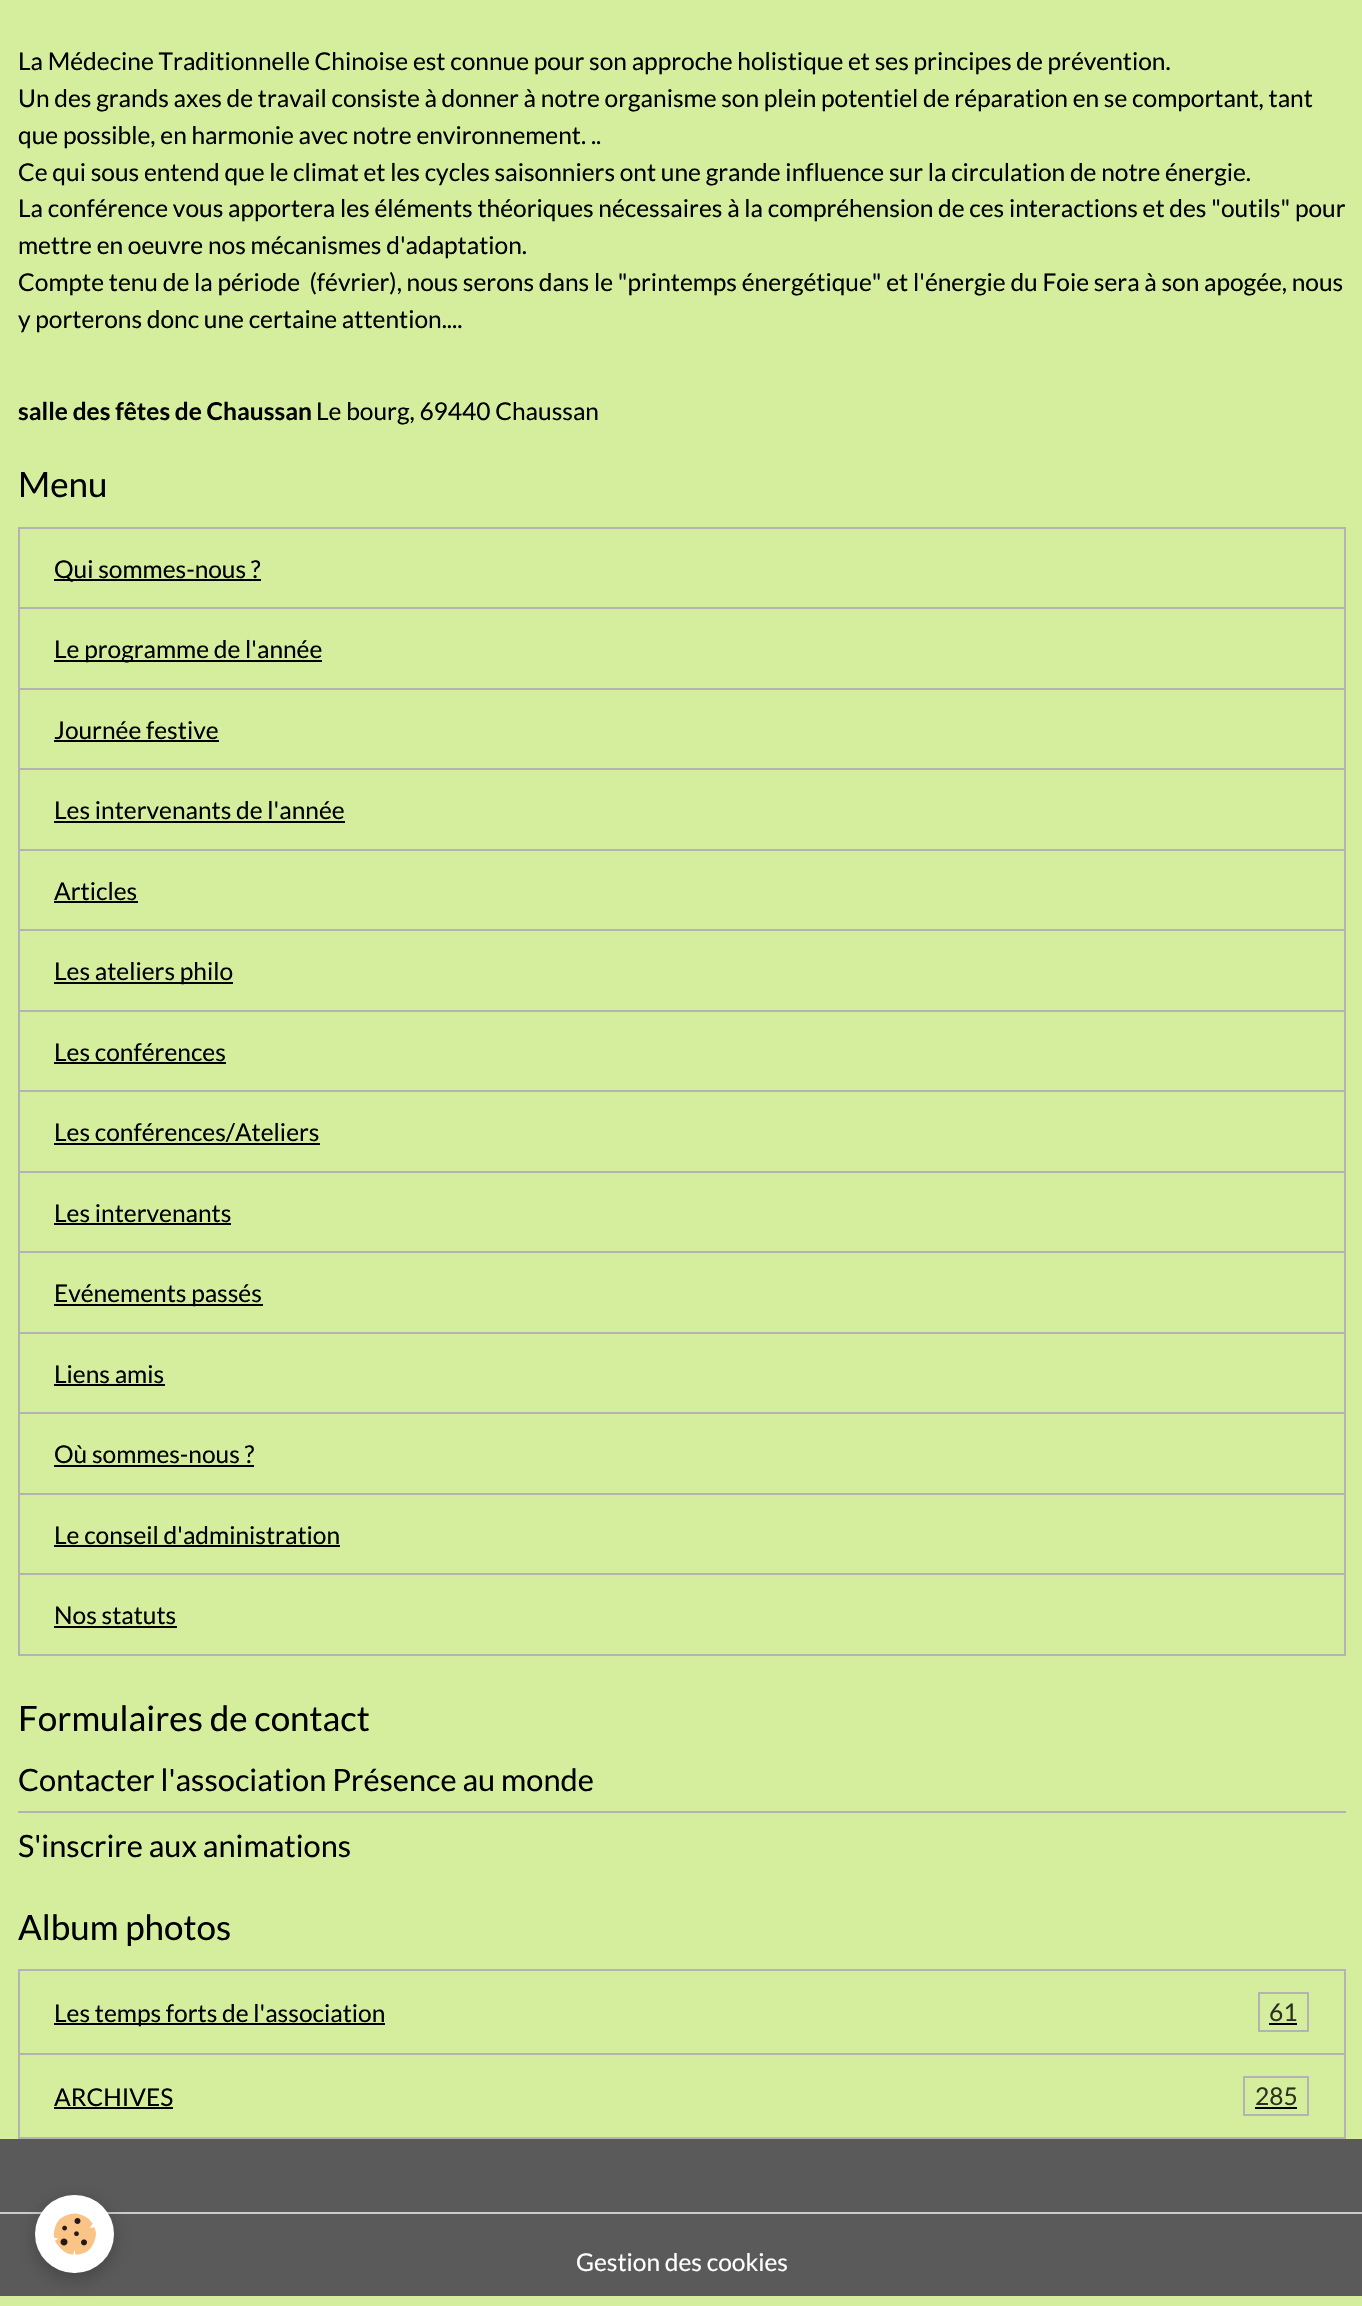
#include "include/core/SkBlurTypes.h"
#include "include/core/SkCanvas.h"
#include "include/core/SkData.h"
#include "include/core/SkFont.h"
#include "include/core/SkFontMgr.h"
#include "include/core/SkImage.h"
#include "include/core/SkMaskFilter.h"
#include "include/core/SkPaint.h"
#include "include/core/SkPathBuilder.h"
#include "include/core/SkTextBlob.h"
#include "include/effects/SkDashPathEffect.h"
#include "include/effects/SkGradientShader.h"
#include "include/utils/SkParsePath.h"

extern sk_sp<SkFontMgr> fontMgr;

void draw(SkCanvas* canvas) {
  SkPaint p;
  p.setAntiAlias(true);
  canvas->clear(SkColorSetRGB(213, 238, 157));
  p.setStyle(SkPaint::kStroke_Style);
  p.setStrokeWidth(2);
  p.setColor(SkColorSetRGB(179, 179, 179));
  canvas->drawRect(SkRect::MakeLTRB(19, 528, 1345, 608), p);
  p.setStyle(SkPaint::kFill_Style);
  p.setColor(SK_ColorBLACK);
  canvas->drawRect(SkRect::MakeLTRB(54, 579, 261, 581), p);
  p.setStyle(SkPaint::kStroke_Style);
  p.setColor(SkColorSetRGB(179, 179, 179));
  canvas->drawRect(SkRect::MakeLTRB(19, 608, 1345, 689), p);
  p.setStyle(SkPaint::kFill_Style);
  p.setColor(SK_ColorBLACK);
  canvas->drawRect(SkRect::MakeLTRB(54, 660, 322, 662), p);
  p.setStyle(SkPaint::kStroke_Style);
  p.setColor(SkColorSetRGB(179, 179, 179));
  canvas->drawRect(SkRect::MakeLTRB(19, 689, 1345, 769), p);
  p.setStyle(SkPaint::kFill_Style);
  p.setColor(SK_ColorBLACK);
  canvas->drawRect(SkRect::MakeLTRB(54, 740, 219, 742), p);
  p.setStyle(SkPaint::kStroke_Style);
  p.setColor(SkColorSetRGB(179, 179, 179));
  canvas->drawRect(SkRect::MakeLTRB(19, 769, 1345, 850), p);
  p.setStyle(SkPaint::kFill_Style);
  p.setColor(SK_ColorBLACK);
  canvas->drawRect(SkRect::MakeLTRB(54, 821, 345, 823), p);
  p.setStyle(SkPaint::kStroke_Style);
  p.setColor(SkColorSetRGB(179, 179, 179));
  canvas->drawRect(SkRect::MakeLTRB(19, 850, 1345, 930), p);
  p.setStyle(SkPaint::kFill_Style);
  p.setColor(SK_ColorBLACK);
  canvas->drawRect(SkRect::MakeLTRB(54, 901, 138, 903), p);
  p.setStyle(SkPaint::kStroke_Style);
  p.setColor(SkColorSetRGB(179, 179, 179));
  canvas->drawRect(SkRect::MakeLTRB(19, 930, 1345, 1011), p);
  p.setStyle(SkPaint::kFill_Style);
  p.setColor(SK_ColorBLACK);
  canvas->drawRect(SkRect::MakeLTRB(54, 982, 233, 984), p);
  p.setStyle(SkPaint::kStroke_Style);
  p.setColor(SkColorSetRGB(179, 179, 179));
  canvas->drawRect(SkRect::MakeLTRB(19, 1011, 1345, 1091), p);
  p.setStyle(SkPaint::kFill_Style);
  p.setColor(SK_ColorBLACK);
  canvas->drawRect(SkRect::MakeLTRB(54, 1062, 226, 1064), p);
  p.setStyle(SkPaint::kStroke_Style);
  p.setColor(SkColorSetRGB(179, 179, 179));
  canvas->drawRect(SkRect::MakeLTRB(19, 1091, 1345, 1172), p);
  p.setStyle(SkPaint::kFill_Style);
  p.setColor(SK_ColorBLACK);
  canvas->drawRect(SkRect::MakeLTRB(54, 1143, 320, 1145), p);
  p.setStyle(SkPaint::kStroke_Style);
  p.setColor(SkColorSetRGB(179, 179, 179));
  canvas->drawRect(SkRect::MakeLTRB(19, 1172, 1345, 1252), p);
  p.setStyle(SkPaint::kFill_Style);
  p.setColor(SK_ColorBLACK);
  canvas->drawRect(SkRect::MakeLTRB(54, 1223, 231, 1225), p);
  p.setStyle(SkPaint::kStroke_Style);
  p.setColor(SkColorSetRGB(179, 179, 179));
  canvas->drawRect(SkRect::MakeLTRB(19, 1252, 1345, 1333), p);
  p.setStyle(SkPaint::kFill_Style);
  p.setColor(SK_ColorBLACK);
  canvas->drawRect(SkRect::MakeLTRB(54, 1304, 263, 1306), p);
  p.setStyle(SkPaint::kStroke_Style);
  p.setColor(SkColorSetRGB(179, 179, 179));
  canvas->drawRect(SkRect::MakeLTRB(19, 1333, 1345, 1413), p);
  p.setStyle(SkPaint::kFill_Style);
  p.setColor(SK_ColorBLACK);
  canvas->drawRect(SkRect::MakeLTRB(54, 1384, 165, 1386), p);
  p.setStyle(SkPaint::kStroke_Style);
  p.setColor(SkColorSetRGB(179, 179, 179));
  canvas->drawRect(SkRect::MakeLTRB(19, 1413, 1345, 1494), p);
  p.setStyle(SkPaint::kFill_Style);
  p.setColor(SK_ColorBLACK);
  canvas->drawRect(SkRect::MakeLTRB(54, 1465, 254, 1467), p);
  p.setStyle(SkPaint::kStroke_Style);
  p.setColor(SkColorSetRGB(179, 179, 179));
  canvas->drawRect(SkRect::MakeLTRB(19, 1494, 1345, 1574), p);
  p.setStyle(SkPaint::kFill_Style);
  p.setColor(SK_ColorBLACK);
  canvas->drawRect(SkRect::MakeLTRB(54, 1545, 340, 1547), p);
  p.setStyle(SkPaint::kStroke_Style);
  p.setColor(SkColorSetRGB(179, 179, 179));
  canvas->drawRect(SkRect::MakeLTRB(19, 1574, 1345, 1655), p);
  p.setStyle(SkPaint::kFill_Style);
  p.setColor(SK_ColorBLACK);
  canvas->drawRect(SkRect::MakeLTRB(54, 1626, 177, 1628), p);
  p.setColor(SkColorSetRGB(179, 179, 179));
  canvas->drawRect(SkRect::MakeLTRB(18, 1811, 1346, 1813), p);
  p.setStyle(SkPaint::kStroke_Style);
  canvas->drawRect(SkRect::MakeLTRB(19, 1970, 1345, 2054), p);
  p.setStyle(SkPaint::kFill_Style);
  p.setColor(SK_ColorBLACK);
  canvas->drawRect(SkRect::MakeLTRB(54, 2023, 385, 2025), p);
  p.setStyle(SkPaint::kStroke_Style);
  p.setColor(SkColorSetRGB(179, 179, 179));
  canvas->drawRect(SkRect::MakeLTRB(1259, 1993, 1308, 2031), p);
  p.setStyle(SkPaint::kFill_Style);
  p.setColor(SK_ColorBLACK);
  canvas->drawRect(SkRect::MakeLTRB(1269, 2023, 1297, 2025), p);
  p.setStyle(SkPaint::kStroke_Style);
  p.setColor(SkColorSetRGB(179, 179, 179));
  canvas->drawRect(SkRect::MakeLTRB(19, 2054, 1345, 2138), p);
  p.setStyle(SkPaint::kFill_Style);
  p.setColor(SK_ColorBLACK);
  canvas->drawRect(SkRect::MakeLTRB(54, 2107, 173, 2109), p);
  p.setStyle(SkPaint::kStroke_Style);
  p.setColor(SkColorSetRGB(179, 179, 179));
  canvas->drawRect(SkRect::MakeLTRB(1244, 2077, 1308, 2115), p);
  p.setStyle(SkPaint::kFill_Style);
  p.setColor(SK_ColorBLACK);
  canvas->drawRect(SkRect::MakeLTRB(1255, 2107, 1297, 2109), p);
  p.setColor(SkColorSetRGB(90, 90, 90));
  canvas->drawRect(SkRect::MakeLTRB(0, 2139, 1362, 2296), p);
  p.setColor(SkColorSetRGB(204, 204, 204));
  canvas->drawRect(SkRect::MakeLTRB(0, 2212, 1362, 2214), p);
  p.setColor(SkColorSetARGB(61, 0, 0, 0));
  p.setMaskFilter(SkMaskFilter::MakeBlur(kNormal_SkBlurStyle, 9));
  canvas->drawRoundRect(SkRect::MakeLTRB(35, 2200, 114, 2279), 39.5f, 39.5f, p);
  p.setMaskFilter(nullptr);
  p.setColor(SK_ColorWHITE);
  canvas->drawRoundRect(SkRect::MakeLTRB(35, 2195, 114, 2273), 39, 39, p);
  canvas->drawImageRect(SkImages::DeferredFromEncodedData(SkData::MakeFromFileName("images/1.png")), SkRect::MakeLTRB(53, 2213, 96, 2255), SkSamplingOptions());
  SkFont font1(fontMgr->matchFamilyStyle("Lato", SkFontStyle::Normal()), 24.5f);
  font1.setSubpixel(true);
  p.setColor(SK_ColorBLACK);
  canvas->drawString("La Médecine Traditionnelle Chinoise est connue pour son approche holistique et ses principes de prévention.", 18, 70, font1, p);
  canvas->drawString("Un des grands axes de travail consiste à donner à notre organisme son plein potentiel de réparation en se comportant, tant", 18, 107, font1, p);
  canvas->drawString("que possible, en harmonie avec notre environnement. ..", 18, 144, font1, p);
  canvas->drawString("Ce qui sous entend que le climat et les cycles saisonniers ont une grande influence sur la circulation de notre énergie.", 18, 181, font1, p);
  canvas->drawString("La conférence vous apportera les éléments théoriques nécessaires à la compréhension de ces interactions et des \"outils\" pour", 18, 217, font1, p);
  canvas->drawString("mettre en oeuvre nos mécanismes d'adaptation.", 18, 254, font1, p);
  canvas->drawString("Compte tenu de la période  (février), nous serons dans le \"printemps énergétique\" et l'énergie du Foie sera à son apogée, nous", 18, 291, font1, p);
  canvas->drawString("y porterons donc une certaine attention....", 18, 328, font1, p);
  SkFont font2(fontMgr->matchFamilyStyle("Lato", SkFontStyle::Bold()), 24.5f);
  font2.setSubpixel(true);
  canvas->drawString("salle des fêtes de Chaussan", 18, 420, font2, p);
  canvas->drawString("Le bourg, 69440 Chaussan", 316, 420, font1, p);
  SkFont font3(fontMgr->matchFamilyStyle("Lato", SkFontStyle::Normal()), 35);
  font3.setSubpixel(true);
  canvas->drawString("Menu", 18, 497, font3, p);
  canvas->drawString("Qui sommes-nous ?", 54, 578, font1, p);
  canvas->drawString("Le programme de l'année", 54, 658, font1, p);
  canvas->drawString("Journée festive", 54, 739, font1, p);
  canvas->drawString("Les intervenants de l'année", 54, 819, font1, p);
  canvas->drawString("Articles", 54, 900, font1, p);
  canvas->drawString("Les ateliers philo", 54, 980, font1, p);
  canvas->drawString("Les conférences", 54, 1061, font1, p);
  canvas->drawString("Les conférences/Ateliers", 54, 1141, font1, p);
  canvas->drawString("Les intervenants", 54, 1222, font1, p);
  canvas->drawString("Evénements passés", 54, 1302, font1, p);
  canvas->drawString("Liens amis", 54, 1383, font1, p);
  canvas->drawString("Où sommes-nous ?", 54, 1463, font1, p);
  canvas->drawString("Le conseil d'administration", 54, 1544, font1, p);
  canvas->drawString("Nos statuts", 54, 1624, font1, p);
  canvas->drawString("Formulaires de contact", 18, 1731, font3, p);
  SkFont font4(fontMgr->matchFamilyStyle("Lato", SkFontStyle::Normal()), 30.75f);
  font4.setSubpixel(true);
  canvas->drawString("Contacter l'association Présence au monde", 18, 1791, font4, p);
  canvas->drawString("S'inscrire aux animations", 18, 1857, font4, p);
  canvas->drawString("Album photos", 18, 1940, font3, p);
  canvas->drawString("Les temps forts de l'association", 54, 2022, font1, p);
  p.setColor(SkColorSetRGB(43, 48, 31));
  canvas->drawString("61", 1269, 2021, font1, p);
  p.setColor(SK_ColorBLACK);
  canvas->drawString("ARCHIVES", 54, 2106, font1, p);
  p.setColor(SkColorSetRGB(43, 48, 31));
  canvas->drawString("285", 1255, 2105, font1, p);
  p.setColor(SK_ColorWHITE);
  canvas->drawString("Gestion des cookies", 576, 2271, font1, p);
}
